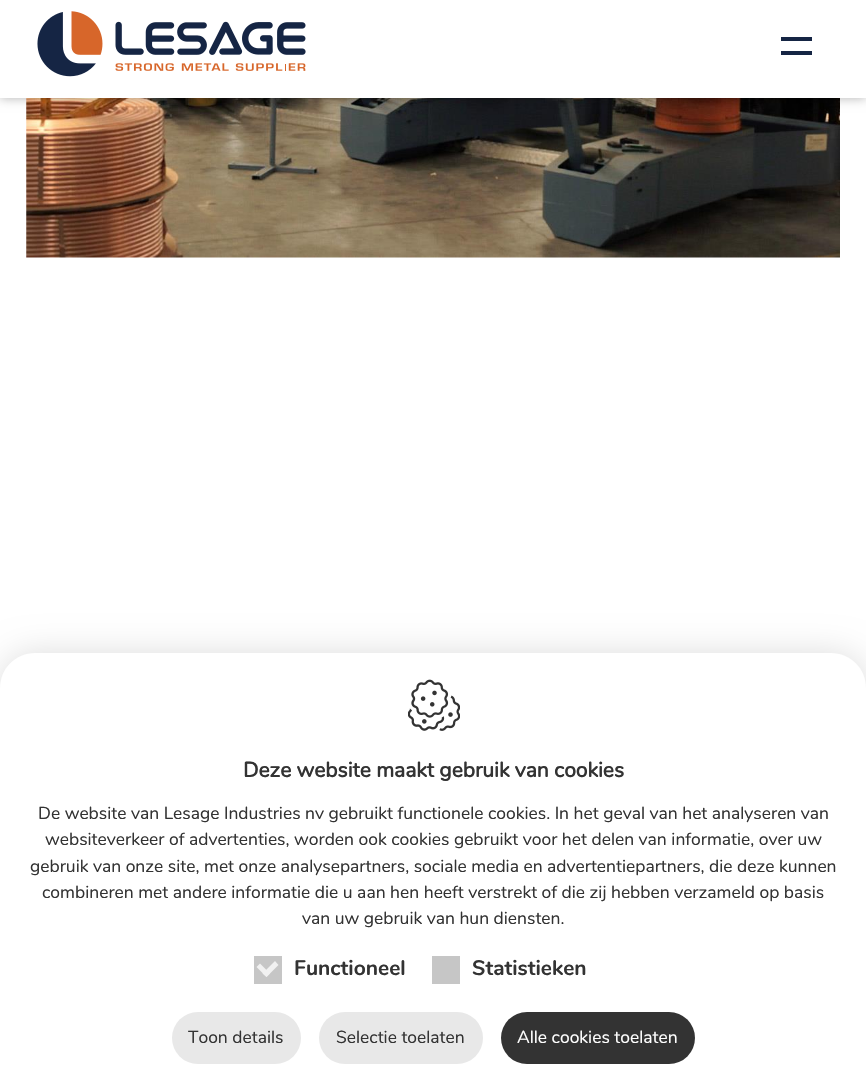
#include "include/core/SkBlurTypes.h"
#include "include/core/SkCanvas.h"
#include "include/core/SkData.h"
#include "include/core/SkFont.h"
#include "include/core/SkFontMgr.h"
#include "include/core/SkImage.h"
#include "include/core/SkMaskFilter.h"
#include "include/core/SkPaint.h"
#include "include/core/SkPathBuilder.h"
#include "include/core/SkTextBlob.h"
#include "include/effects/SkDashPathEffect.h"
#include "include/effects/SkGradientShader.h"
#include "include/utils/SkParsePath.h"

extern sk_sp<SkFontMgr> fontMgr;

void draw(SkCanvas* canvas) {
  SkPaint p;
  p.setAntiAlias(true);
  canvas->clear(SK_ColorWHITE);
  canvas->drawImageRect(SkImages::DeferredFromEncodedData(SkData::MakeFromFileName("images/2.png")), SkRect::MakeLTRB(26, 98, 840, 258), SkSamplingOptions());
  p.setColor(SkColorSetARGB(77, 0, 0, 0));
  p.setMaskFilter(SkMaskFilter::MakeBlur(kNormal_SkBlurStyle, 5));
  canvas->drawRect(SkRect::MakeLTRB(0, 0, 866, 98), p);
  p.setMaskFilter(nullptr);
  p.setColor(SK_ColorWHITE);
  canvas->drawRect(SkRect::MakeLTRB(0, 0, 866, 98), p);
  canvas->drawImageRect(SkImages::DeferredFromEncodedData(SkData::MakeFromFileName("images/1.png")), SkRect::MakeLTRB(37, 11, 306, 77), SkSamplingOptions());
  p.setColor(SkColorSetRGB(21, 37, 68));
  canvas->drawRect(SkRect::MakeLTRB(781, 37, 812, 41), p);
  canvas->drawRect(SkRect::MakeLTRB(781, 51, 812, 55), p);
  p.setColor(SkColorSetARGB(38, 0, 0, 0));
  p.setMaskFilter(SkMaskFilter::MakeBlur(kNormal_SkBlurStyle, 17.5f));
  canvas->drawRoundRect(SkRect::MakeLTRB(2, 655, 865, 1089), 33, 33, p);
  p.setMaskFilter(nullptr);
  p.setColor(SK_ColorWHITE);
  canvas->drawPath(SkPathBuilder().moveTo(35, 653).lineTo(831, 653).cubicTo(850.5f, 653, 866, 668.5f, 866, 688).lineTo(866, 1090).lineTo(0, 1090).lineTo(0, 688).cubicTo(0, 668.5f, 15.5f, 653, 35, 653).close().detach(), p);
  canvas->drawImageRect(SkImages::DeferredFromEncodedData(SkData::MakeFromFileName("images/3.png")), SkRect::MakeLTRB(408, 679, 460, 731), SkSamplingOptions());
  p.setColor(SkColorSetRGB(198, 198, 198));
  canvas->drawRect(SkRect::MakeLTRB(254, 956, 282, 984), p);
  p.setColor(SkColorSetRGB(241, 241, 241));
  canvas->drawPath(SkPathBuilder().moveTo(275, 961).lineTo(278.5f, 965).lineTo(266.5f, 977).lineTo(262.5f, 973.5f).close().detach(), p);
  canvas->drawPath(SkPathBuilder().moveTo(260, 963.5f).lineTo(270, 973.5f).lineTo(266.5f, 977).lineTo(256.5f, 967).close().detach(), p);
  p.setColor(SkColorSetRGB(198, 198, 198));
  canvas->drawRect(SkRect::MakeLTRB(432, 956, 460, 984), p);
  p.setColor(SkColorSetRGB(232, 232, 232));
  canvas->drawRoundRect(SkRect::MakeLTRB(172, 1012, 301, 1064), 26, 26, p);
  canvas->drawRoundRect(SkRect::MakeLTRB(319, 1012, 483, 1064), 26, 26, p);
  p.setColor(SkColorSetRGB(51, 51, 51));
  canvas->drawRoundRect(SkRect::MakeLTRB(501, 1012, 695, 1064), 26, 26, p);
  SkFont font1(fontMgr->matchFamilyStyle("Nunito", SkFontStyle::Bold()), 21);
  font1.setSubpixel(true);
  canvas->drawString("Deze website maakt gebruik van cookies", 243, 777, font1, p);
  SkFont font2(fontMgr->matchFamilyStyle("Nunito", SkFontStyle::Normal()), 17.5f);
  font2.setSubpixel(true);
  canvas->drawString("De website van Lesage Industries nv gebruikt functionele cookies. In het geval van het analyseren van", 38, 819, font2, p);
  canvas->drawString("websiteverkeer of advertenties, worden ook cookies gebruikt voor het delen van informatie, over uw", 45, 845, font2, p);
  canvas->drawString("gebruik van onze site, met onze analysepartners, sociale media en advertentiepartners, die deze kunnen", 30, 872, font2, p);
  canvas->drawString("combineren met andere informatie die u aan hen heeft verstrekt of die zij hebben verzameld op basis", 42, 898, font2, p);
  canvas->drawString("van uw gebruik van hun diensten.", 302, 924, font2, p);
  SkFont font3(fontMgr->matchFamilyStyle("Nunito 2", SkFontStyle::Bold()), 21);
  font3.setSubpixel(true);
  canvas->drawString("Functioneel", 294, 975, font3, p);
  canvas->drawString("Statistieken", 472, 975, font3, p);
  canvas->drawString("Toon details", 188, 1043, font2, p);
  canvas->drawString("Selectie toelaten", 336, 1043, font2, p);
  p.setColor(SK_ColorWHITE);
  canvas->drawString("Alle cookies toelaten", 517, 1043, font2, p);
}
